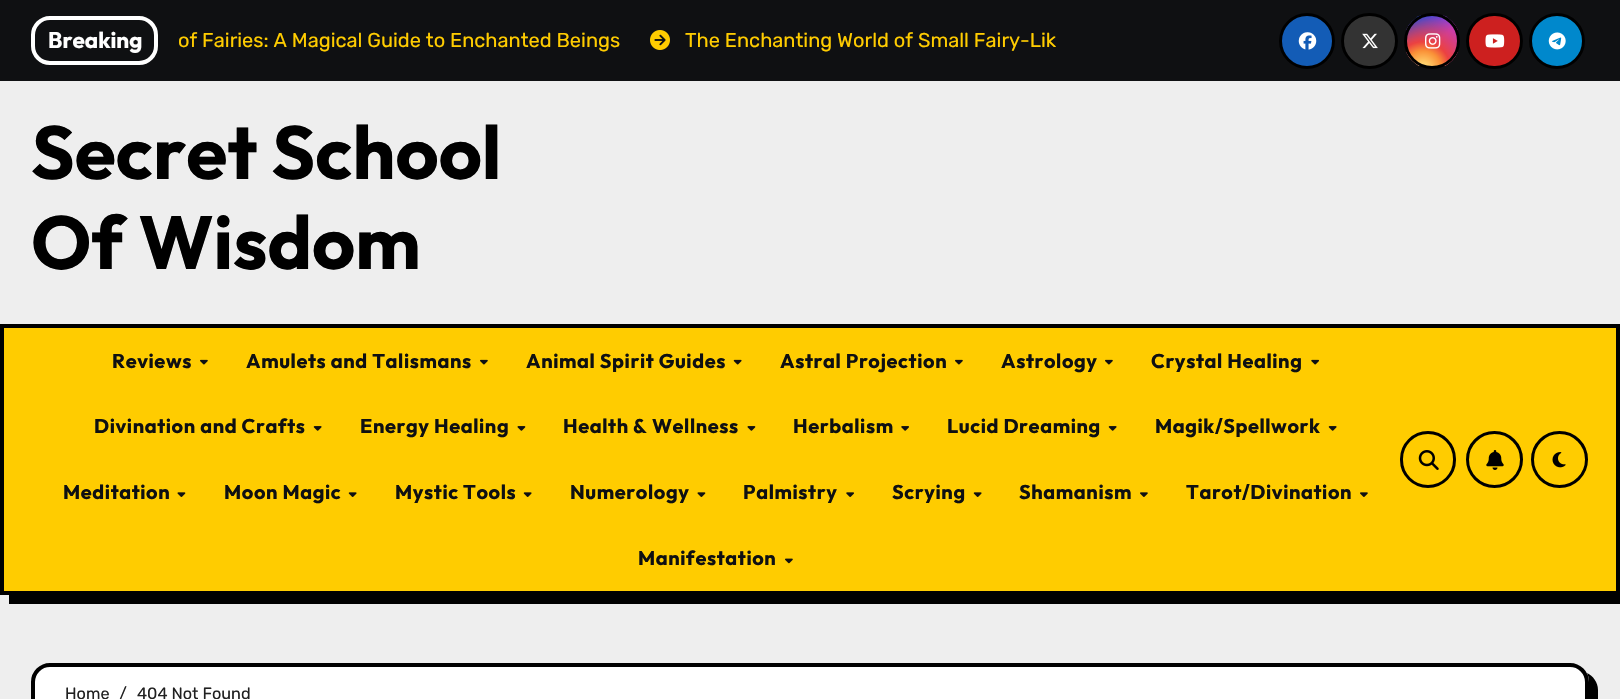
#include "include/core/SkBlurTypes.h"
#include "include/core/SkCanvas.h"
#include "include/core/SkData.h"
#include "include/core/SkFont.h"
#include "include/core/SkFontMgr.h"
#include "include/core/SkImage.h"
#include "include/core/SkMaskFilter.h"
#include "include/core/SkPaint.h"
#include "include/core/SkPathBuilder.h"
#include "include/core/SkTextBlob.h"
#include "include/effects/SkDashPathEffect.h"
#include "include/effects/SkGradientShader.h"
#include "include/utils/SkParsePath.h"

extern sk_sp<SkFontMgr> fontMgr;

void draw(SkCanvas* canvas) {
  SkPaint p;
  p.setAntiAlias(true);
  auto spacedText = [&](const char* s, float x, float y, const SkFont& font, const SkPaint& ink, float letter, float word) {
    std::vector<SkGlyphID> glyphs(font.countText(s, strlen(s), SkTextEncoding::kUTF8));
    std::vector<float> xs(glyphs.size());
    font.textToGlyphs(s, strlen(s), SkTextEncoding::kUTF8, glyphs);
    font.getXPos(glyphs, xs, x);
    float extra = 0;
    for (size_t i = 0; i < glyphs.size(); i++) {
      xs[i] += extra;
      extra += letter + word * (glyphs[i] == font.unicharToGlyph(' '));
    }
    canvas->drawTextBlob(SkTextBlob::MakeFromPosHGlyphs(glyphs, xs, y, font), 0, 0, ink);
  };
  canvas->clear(SkColorSetRGB(238, 238, 238));
  p.setColor(SkColorSetRGB(15, 16, 18));
  canvas->drawRect(SkRect::MakeLTRB(0, 0, 1620, 81), p);
  p.setStyle(SkPaint::kStroke_Style);
  p.setStrokeWidth(4);
  p.setColor(SK_ColorWHITE);
  canvas->drawRoundRect(SkRect::MakeLTRB(33, 18, 156, 63), 17, 17, p);
  canvas->drawImageRect(SkImages::DeferredFromEncodedData(SkData::MakeFromFileName("images/1.png")), SkRect::MakeLTRB(650, 30, 670, 50), SkSamplingOptions());
  p.setStyle(SkPaint::kFill_Style);
  p.setColor(SkColorSetRGB(19, 92, 182));
  canvas->drawCircle(1307, 41, 26.5f, p);
  p.setStyle(SkPaint::kStroke_Style);
  p.setStrokeWidth(3);
  p.setColor(SK_ColorBLACK);
  canvas->drawCircle(1307, 41, 26.5f, p);
  canvas->drawImageRect(SkImages::DeferredFromEncodedData(SkData::MakeFromFileName("images/2.png")), SkRect::MakeLTRB(1298, 32, 1317, 50), SkSamplingOptions());
  p.setStyle(SkPaint::kFill_Style);
  p.setColor(SkColorSetRGB(51, 51, 51));
  canvas->drawRoundRect(SkRect::MakeLTRB(1342.5f, 14.5f, 1396.5f, 67.5f), 26.5f, 26.5f, p);
  p.setStyle(SkPaint::kStroke_Style);
  p.setColor(SK_ColorBLACK);
  canvas->drawRoundRect(SkRect::MakeLTRB(1342.5f, 14.5f, 1396.5f, 67.5f), 26.5f, 26.5f, p);
  canvas->drawImageRect(SkImages::DeferredFromEncodedData(SkData::MakeFromFileName("images/3.png")), SkRect::MakeLTRB(1362, 33, 1378, 49), SkSamplingOptions());
  canvas->save();
  canvas->clipPath(SkPathBuilder().moveTo(1432, 13).cubicTo(1447.5f, 13, 1460, 25.5f, 1460, 41).cubicTo(1460, 56.5f, 1447.5f, 69, 1432, 69).cubicTo(1416.5f, 69, 1404, 56.5f, 1404, 41).cubicTo(1404, 25.5f, 1416.5f, 13, 1432, 13).close().detach(), true);
  p.setStyle(SkPaint::kFill_Style);
  {
    const SkColor colors[] = {SkColorSetRGB(35, 75, 215), SkColorSetRGB(195, 60, 190)};
    const float stops[] = {0.12f, 0.58f};
    const SkPoint ends[] = {{1406, 15}, {1458, 66}};
    p.setShader(SkGradientShader::MakeLinear(ends, colors, stops, 2, SkTileMode::kClamp));
    p.setAlpha(255);
  }
  canvas->drawRect(SkRect::MakeLTRB(1406, 15, 1458, 66), p);
  {
    const SkColor colors[] = {SkColorSetRGB(255, 225, 125), SkColorSetRGB(255, 205, 105), SkColorSetRGB(250, 145, 55), SkColorSetRGB(235, 65, 65), SkColorSetARGB(0, 235, 65, 65)};
    const float stops[] = {0, 0.1f, 0.28f, 0.42f, 0.82f};
    p.setShader(SkGradientShader::MakeRadial({1423, 69}, 65, colors, stops, 5, SkTileMode::kClamp));
    p.setAlpha(255);
  }
  canvas->drawRect(SkRect::MakeLTRB(1406, 16, 1458, 66), p);
  canvas->restore();
  p.setStyle(SkPaint::kStroke_Style);
  p.setShader(nullptr);
  p.setColor(SK_ColorBLACK);
  canvas->drawCircle(1432, 41, 26.5f, p);
  canvas->drawImageRect(SkImages::DeferredFromEncodedData(SkData::MakeFromFileName("images/4.png")), SkRect::MakeLTRB(1425, 33, 1441, 49), SkSamplingOptions());
  p.setStyle(SkPaint::kFill_Style);
  p.setColor(SkColorSetRGB(205, 32, 31));
  canvas->drawRoundRect(SkRect::MakeLTRB(1467.5f, 14.5f, 1521.5f, 67.5f), 26.5f, 26.5f, p);
  p.setStyle(SkPaint::kStroke_Style);
  p.setColor(SK_ColorBLACK);
  canvas->drawRoundRect(SkRect::MakeLTRB(1467.5f, 14.5f, 1521.5f, 67.5f), 26.5f, 26.5f, p);
  canvas->drawImageRect(SkImages::DeferredFromEncodedData(SkData::MakeFromFileName("images/5.png")), SkRect::MakeLTRB(1485, 34, 1505, 48), SkSamplingOptions());
  p.setStyle(SkPaint::kFill_Style);
  p.setColor(SkColorSetRGB(0, 136, 204));
  canvas->drawCircle(1557, 41, 26.5f, p);
  p.setStyle(SkPaint::kStroke_Style);
  p.setColor(SK_ColorBLACK);
  canvas->drawCircle(1557, 41, 26.5f, p);
  canvas->drawImageRect(SkImages::DeferredFromEncodedData(SkData::MakeFromFileName("images/6.png")), SkRect::MakeLTRB(1548, 32, 1566, 50), SkSamplingOptions());
  p.setStyle(SkPaint::kFill_Style);
  canvas->drawPath(SkPathBuilder().moveTo(9, 595).lineTo(9, 604).lineTo(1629, 604).lineTo(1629, 333).lineTo(1620, 333).lineTo(1620, 595).close().detach(), p);
  p.setColor(SkColorSetRGB(255, 204, 0));
  canvas->drawRect(SkRect::MakeLTRB(2, 326, 1618, 593), p);
  p.setStyle(SkPaint::kStroke_Style);
  p.setStrokeWidth(4);
  p.setColor(SK_ColorBLACK);
  canvas->drawRect(SkRect::MakeLTRB(2, 326, 1618, 593), p);
  canvas->drawImageRect(SkImages::DeferredFromEncodedData(SkData::MakeFromFileName("images/7.png")), SkRect::MakeLTRB(200, 359, 208, 365), SkSamplingOptions());
  canvas->drawImageRect(SkImages::DeferredFromEncodedData(SkData::MakeFromFileName("images/7.png")), SkRect::MakeLTRB(480, 359, 488, 365), SkSamplingOptions());
  canvas->drawImageRect(SkImages::DeferredFromEncodedData(SkData::MakeFromFileName("images/8.png")), SkRect::MakeLTRB(733, 359, 742, 365), SkSamplingOptions());
  canvas->drawImageRect(SkImages::DeferredFromEncodedData(SkData::MakeFromFileName("images/7.png")), SkRect::MakeLTRB(955, 359, 963, 365), SkSamplingOptions());
  canvas->drawImageRect(SkImages::DeferredFromEncodedData(SkData::MakeFromFileName("images/7.png")), SkRect::MakeLTRB(1105, 359, 1113, 365), SkSamplingOptions());
  canvas->drawImageRect(SkImages::DeferredFromEncodedData(SkData::MakeFromFileName("images/9.png")), SkRect::MakeLTRB(1311, 359, 1319, 365), SkSamplingOptions());
  canvas->drawImageRect(SkImages::DeferredFromEncodedData(SkData::MakeFromFileName("images/10.png")), SkRect::MakeLTRB(313, 426, 322, 431), SkSamplingOptions());
  canvas->drawImageRect(SkImages::DeferredFromEncodedData(SkData::MakeFromFileName("images/11.png")), SkRect::MakeLTRB(517, 426, 526, 431), SkSamplingOptions());
  canvas->drawImageRect(SkImages::DeferredFromEncodedData(SkData::MakeFromFileName("images/11.png")), SkRect::MakeLTRB(747, 426, 756, 431), SkSamplingOptions());
  canvas->drawImageRect(SkImages::DeferredFromEncodedData(SkData::MakeFromFileName("images/12.png")), SkRect::MakeLTRB(901, 426, 909, 431), SkSamplingOptions());
  canvas->drawImageRect(SkImages::DeferredFromEncodedData(SkData::MakeFromFileName("images/10.png")), SkRect::MakeLTRB(1108, 426, 1117, 431), SkSamplingOptions());
  canvas->drawImageRect(SkImages::DeferredFromEncodedData(SkData::MakeFromFileName("images/10.png")), SkRect::MakeLTRB(1328, 426, 1337, 431), SkSamplingOptions());
  canvas->drawImageRect(SkImages::DeferredFromEncodedData(SkData::MakeFromFileName("images/13.png")), SkRect::MakeLTRB(177, 492, 186, 497), SkSamplingOptions());
  canvas->drawImageRect(SkImages::DeferredFromEncodedData(SkData::MakeFromFileName("images/14.png")), SkRect::MakeLTRB(348, 492, 357, 497), SkSamplingOptions());
  canvas->drawImageRect(SkImages::DeferredFromEncodedData(SkData::MakeFromFileName("images/14.png")), SkRect::MakeLTRB(523, 492, 532, 497), SkSamplingOptions());
  canvas->drawImageRect(SkImages::DeferredFromEncodedData(SkData::MakeFromFileName("images/13.png")), SkRect::MakeLTRB(697, 492, 706, 497), SkSamplingOptions());
  canvas->drawImageRect(SkImages::DeferredFromEncodedData(SkData::MakeFromFileName("images/15.png")), SkRect::MakeLTRB(846, 492, 854, 497), SkSamplingOptions());
  canvas->drawImageRect(SkImages::DeferredFromEncodedData(SkData::MakeFromFileName("images/14.png")), SkRect::MakeLTRB(973, 492, 982, 497), SkSamplingOptions());
  canvas->drawImageRect(SkImages::DeferredFromEncodedData(SkData::MakeFromFileName("images/16.png")), SkRect::MakeLTRB(1140, 492, 1148, 497), SkSamplingOptions());
  canvas->drawImageRect(SkImages::DeferredFromEncodedData(SkData::MakeFromFileName("images/16.png")), SkRect::MakeLTRB(1360, 492, 1368, 497), SkSamplingOptions());
  canvas->drawImageRect(SkImages::DeferredFromEncodedData(SkData::MakeFromFileName("images/17.png")), SkRect::MakeLTRB(785, 558, 793, 564), SkSamplingOptions());
  p.setStrokeWidth(3);
  canvas->drawRoundRect(SkRect::MakeLTRB(1401.5f, 432.5f, 1454.5f, 486.5f), 26.5f, 26.5f, p);
  canvas->drawImageRect(SkImages::DeferredFromEncodedData(SkData::MakeFromFileName("images/18.png")), SkRect::MakeLTRB(1418, 450, 1439, 470), SkSamplingOptions());
  canvas->drawCircle(1494.5f, 459.5f, 27, p);
  canvas->drawImageRect(SkImages::DeferredFromEncodedData(SkData::MakeFromFileName("images/19.png")), SkRect::MakeLTRB(1486, 450, 1504, 470), SkSamplingOptions());
  canvas->drawCircle(1559.5f, 459.5f, 27, p);
  canvas->drawImageRect(SkImages::DeferredFromEncodedData(SkData::MakeFromFileName("images/20.png")), SkRect::MakeLTRB(1552, 452, 1566, 468), SkSamplingOptions());
  p.setStyle(SkPaint::kFill_Style);
  canvas->drawPath(SkPathBuilder().moveTo(42, 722).cubicTo(45, 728, 51, 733, 59, 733).lineTo(1579, 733).cubicTo(1589, 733, 1598, 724, 1598, 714).lineTo(1598, 690).cubicTo(1598, 682, 1593, 676, 1587, 673).cubicTo(1588, 675, 1589, 678, 1589, 681).lineTo(1589, 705).cubicTo(1589, 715, 1580, 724, 1570, 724).lineTo(50, 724).cubicTo(47, 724, 44, 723, 42, 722).close().detach(), p);
  p.setColor(SK_ColorWHITE);
  canvas->drawRoundRect(SkRect::MakeLTRB(33, 665, 1587, 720), 17, 17, p);
  p.setStyle(SkPaint::kStroke_Style);
  p.setStrokeWidth(4);
  p.setColor(SK_ColorBLACK);
  canvas->drawRoundRect(SkRect::MakeLTRB(33, 665, 1587, 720), 17, 17, p);
  SkFont font1(fontMgr->matchFamilyStyle("Outfit", SkFontStyle::Bold()), 22.5f);
  font1.setSubpixel(true);
  p.setStyle(SkPaint::kFill_Style);
  p.setColor(SK_ColorWHITE);
  canvas->drawString("Breaking", 48, 48, font1, p);
  SkFont font2(fontMgr->matchFamilyStyle("Rubik", SkFontStyle(300, SkFontStyle::kNormal_Width, SkFontStyle::kUpright_Slant)), 20);
  font2.setSubpixel(true);
  p.setColor(SkColorSetRGB(255, 204, 0));
  canvas->drawString("of Fairies: A Magical Guide to Enchanted Beings", 178, 47, font2, p);
  canvas->drawString("The Enchanting World of Small Fairy-Lik", 685, 47, font2, p);
  SkFont font3(fontMgr->matchFamilyStyle("Outfit", SkFontStyle::Bold()), 75);
  font3.setSubpixel(true);
  p.setColor(SK_ColorBLACK);
  canvas->drawString("Secret School", 31, 179, font3, p);
  canvas->drawString("Of Wisdom", 31, 269, font3, p);
  SkFont font4(fontMgr->matchFamilyStyle("Outfit", SkFontStyle::Bold()), 20);
  font4.setSubpixel(true);
  p.setColor(SkColorSetRGB(15, 16, 18));
  spacedText("Reviews", 112, 368, font4, p, 0.6f, 0);
  spacedText("Amulets and Talismans", 246, 368, font4, p, 0.6f, 0);
  spacedText("Animal Spirit Guides", 526, 368, font4, p, 0.6f, 0);
  spacedText("Astral Projection", 780, 368, font4, p, 0.6f, 0);
  spacedText("Astrology", 1001, 368, font4, p, 0.6f, 0);
  spacedText("Crystal Healing", 1151, 368, font4, p, 0.6f, 0);
  spacedText("Divination and Crafts", 94, 433, font4, p, 0.6f, 0);
  spacedText("Energy Healing", 360, 433, font4, p, 0.6f, 0);
  spacedText("Health & Wellness", 563, 433, font4, p, 0.6f, 0);
  spacedText("Herbalism", 793, 433, font4, p, 0.6f, 0);
  spacedText("Lucid Dreaming", 947, 433, font4, p, 0.6f, 0);
  spacedText("Magik/Spellwork", 1155, 433, font4, p, 0.6f, 0);
  spacedText("Meditation", 63, 499, font4, p, 0.6f, 0);
  spacedText("Moon Magic", 224, 499, font4, p, 0.6f, 0);
  spacedText("Mystic Tools", 395, 499, font4, p, 0.6f, 0);
  spacedText("Numerology", 570, 499, font4, p, 0.6f, 0);
  spacedText("Palmistry", 743, 499, font4, p, 0.6f, 0);
  spacedText("Scrying", 892, 499, font4, p, 0.6f, 0);
  spacedText("Shamanism", 1019, 499, font4, p, 0.6f, 0);
  spacedText("Tarot/Divination", 1186, 499, font4, p, 0.6f, 0);
  spacedText("Manifestation", 638, 565, font4, p, 0.6f, 0);
  SkFont font5(fontMgr->matchFamilyStyle("Rubik", SkFontStyle(300, SkFontStyle::kNormal_Width, SkFontStyle::kUpright_Slant)), 16.25f);
  font5.setSubpixel(true);
  p.setColor(SkColorSetRGB(33, 33, 33));
  canvas->drawString("Home", 65, 699, font5, p);
  canvas->drawString("/", 119, 699, font5, p);
  canvas->drawString("404 Not Found", 137, 699, font5, p);
}
